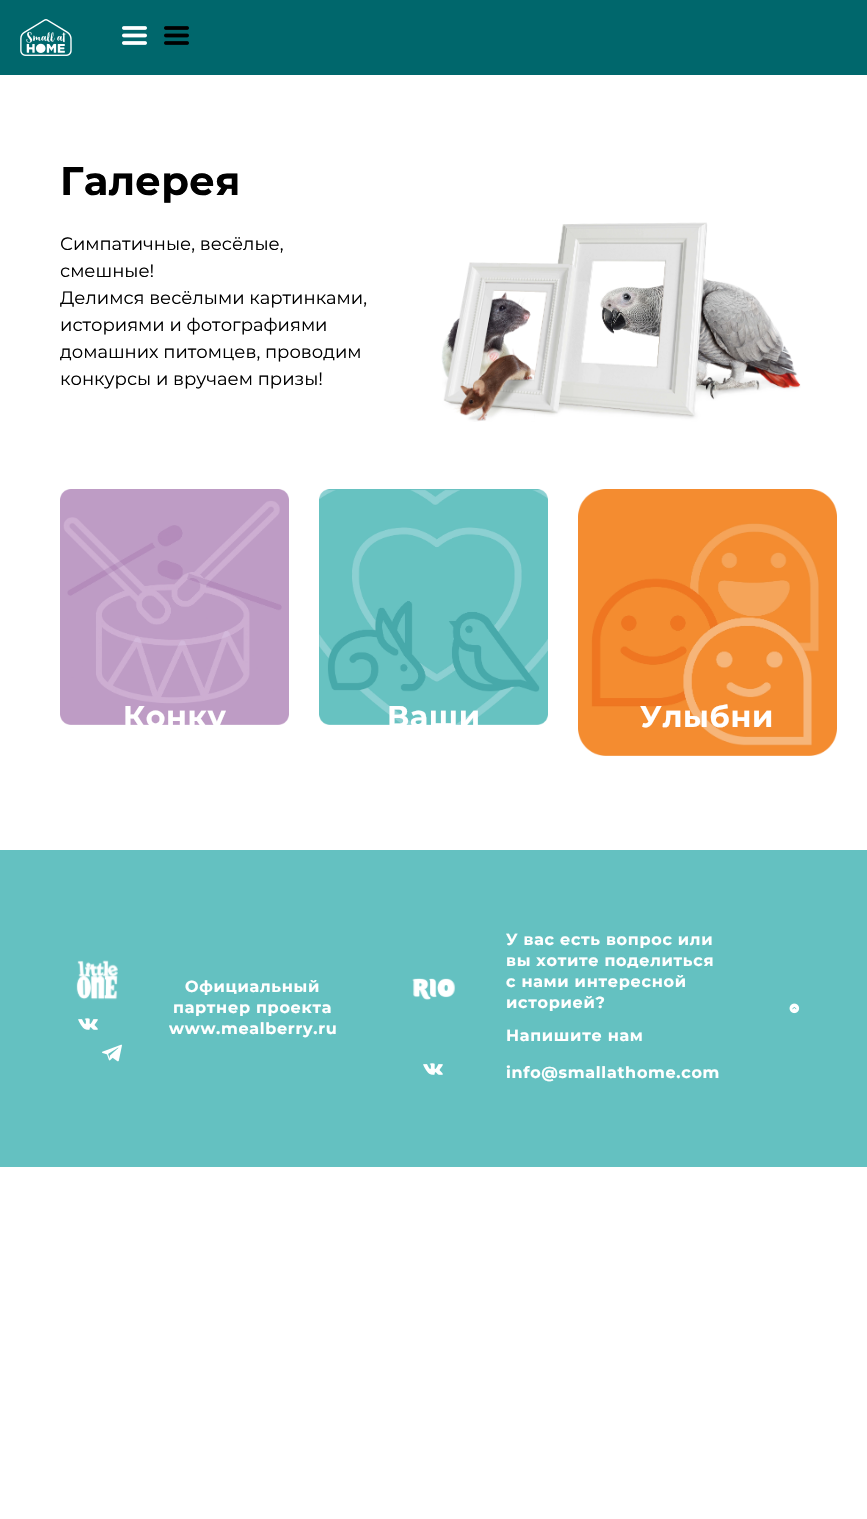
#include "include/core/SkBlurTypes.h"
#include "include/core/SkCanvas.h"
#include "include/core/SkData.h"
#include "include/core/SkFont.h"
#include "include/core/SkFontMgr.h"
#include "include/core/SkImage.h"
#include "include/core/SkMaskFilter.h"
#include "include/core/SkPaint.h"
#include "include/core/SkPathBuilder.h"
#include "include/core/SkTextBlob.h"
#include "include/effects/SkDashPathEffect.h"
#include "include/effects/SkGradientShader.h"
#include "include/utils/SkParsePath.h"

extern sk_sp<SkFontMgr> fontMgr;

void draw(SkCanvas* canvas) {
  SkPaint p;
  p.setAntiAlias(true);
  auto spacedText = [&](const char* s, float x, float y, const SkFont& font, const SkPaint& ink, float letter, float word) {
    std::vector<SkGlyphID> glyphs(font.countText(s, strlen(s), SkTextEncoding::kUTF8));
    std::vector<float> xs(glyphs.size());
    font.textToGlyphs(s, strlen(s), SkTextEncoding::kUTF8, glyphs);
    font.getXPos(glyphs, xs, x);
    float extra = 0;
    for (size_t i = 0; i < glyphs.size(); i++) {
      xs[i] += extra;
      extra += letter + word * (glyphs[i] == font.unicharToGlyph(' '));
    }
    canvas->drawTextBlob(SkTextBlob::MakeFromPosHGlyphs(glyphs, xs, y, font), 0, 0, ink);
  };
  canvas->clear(SK_ColorWHITE);
  p.setColor(SkColorSetRGB(0, 103, 108));
  canvas->drawRect(SkRect::MakeLTRB(0, 0, 867, 75), p);
  canvas->drawImageRect(SkImages::DeferredFromEncodedData(SkData::MakeFromFileName("images/1.png")), SkRect::MakeLTRB(20, 19, 72, 56), SkSamplingOptions());
  canvas->drawImageRect(SkImages::DeferredFromEncodedData(SkData::MakeFromFileName("images/2.png")), SkRect::MakeLTRB(122, 26, 147, 45), SkSamplingOptions());
  canvas->drawImageRect(SkImages::DeferredFromEncodedData(SkData::MakeFromFileName("images/3.png")), SkRect::MakeLTRB(164, 26, 189, 45), SkSamplingOptions());
  canvas->drawImageRect(SkImages::DeferredFromEncodedData(SkData::MakeFromFileName("images/4.png")), SkRect::MakeLTRB(441, 222, 801, 422), SkSamplingOptions());
  canvas->drawImageRect(SkImages::DeferredFromEncodedData(SkData::MakeFromFileName("images/5.png")), SkRect::MakeLTRB(60, 489, 289, 725), SkSamplingOptions());
  canvas->drawImageRect(SkImages::DeferredFromEncodedData(SkData::MakeFromFileName("images/6.png")), SkRect::MakeLTRB(319, 489, 548, 725), SkSamplingOptions());
  canvas->drawImageRect(SkImages::DeferredFromEncodedData(SkData::MakeFromFileName("images/7.png")), SkRect::MakeLTRB(578, 489, 837, 756), SkSamplingOptions());
  p.setColor(SkColorSetRGB(100, 193, 193));
  canvas->drawRect(SkRect::MakeLTRB(0, 850, 867, 1167), p);
  canvas->drawImageRect(SkImages::DeferredFromEncodedData(SkData::MakeFromFileName("images/8.png")), SkRect::MakeLTRB(76, 960, 118, 1000), SkSamplingOptions());
  canvas->drawImageRect(SkImages::DeferredFromEncodedData(SkData::MakeFromFileName("images/9.png")), SkRect::MakeLTRB(78, 1018, 98, 1030), SkSamplingOptions());
  canvas->drawImageRect(SkImages::DeferredFromEncodedData(SkData::MakeFromFileName("images/10.png")), SkRect::MakeLTRB(102, 1044, 122, 1062), SkSamplingOptions());
  canvas->drawImageRect(SkImages::DeferredFromEncodedData(SkData::MakeFromFileName("images/11.png")), SkRect::MakeLTRB(412, 978, 456, 1000), SkSamplingOptions());
  canvas->drawImageRect(SkImages::DeferredFromEncodedData(SkData::MakeFromFileName("images/9.png")), SkRect::MakeLTRB(423, 1063, 443, 1075), SkSamplingOptions());
  canvas->drawImageRect(SkImages::DeferredFromEncodedData(SkData::MakeFromFileName("images/12.png")), SkRect::MakeLTRB(789, 1003, 800, 1014), SkSamplingOptions());
  SkFont font1(fontMgr->matchFamilyStyle("Montserrat", SkFontStyle::Bold()), 40);
  font1.setSubpixel(true);
  p.setColor(SK_ColorBLACK);
  spacedText("Галерея", 60, 195, font1, p, 0.25f, 0);
  SkFont font2(fontMgr->matchFamilyStyle("Montserrat", SkFontStyle::Normal()), 18);
  font2.setSubpixel(true);
  canvas->drawString("Симпатичные, весёлые,", 60, 250, font2, p);
  canvas->drawString("смешные!", 60, 277, font2, p);
  canvas->drawString("Делимся весёлыми картинками,", 60, 304, font2, p);
  canvas->drawString("историями и фотографиями", 60, 331, font2, p);
  canvas->drawString("домашних питомцев, проводим", 60, 358, font2, p);
  canvas->drawString("конкурсы и вручаем призы!", 60, 385, font2, p);
  canvas->save();
  canvas->clipRect(SkRect::MakeLTRB(60, 697, 289, 725));
  SkFont font3(fontMgr->matchFamilyStyle("Montserrat", SkFontStyle::Bold()), 30);
  font3.setSubpixel(true);
  p.setColor(SK_ColorWHITE);
  spacedText("Конку", 123, 727, font3, p, 0.7f, 0);
  canvas->restore();
  canvas->save();
  canvas->clipRect(SkRect::MakeLTRB(319, 697, 548, 725));
  spacedText("Ваши", 387, 727, font3, p, 0.7f, 0);
  canvas->restore();
  spacedText("Улыбни", 640, 727, font3, p, 0.7f, 0);
  SkFont font4(fontMgr->matchFamilyStyle("Montserrat", SkFontStyle::Bold()), 16);
  font4.setSubpixel(true);
  spacedText("Официальный", 185, 992, font4, p, 0.7f, 0);
  spacedText("партнер проекта", 173, 1013, font4, p, 0.7f, 0);
  spacedText("www.mealberry.ru", 169, 1034, font4, p, 0.7f, 0);
  spacedText("У вас есть вопрос или", 506, 945, font4, p, 0.7f, 0);
  spacedText("вы хотите поделиться", 506, 966, font4, p, 0.7f, 0);
  spacedText("с нами интересной", 506, 987, font4, p, 0.7f, 0);
  spacedText("историей?", 506, 1008, font4, p, 0.7f, 0);
  spacedText("Напишите нам", 506, 1041, font4, p, 0.7f, 0);
  spacedText("info@smallathome.com", 506, 1078, font4, p, 0.7f, 0);
}
